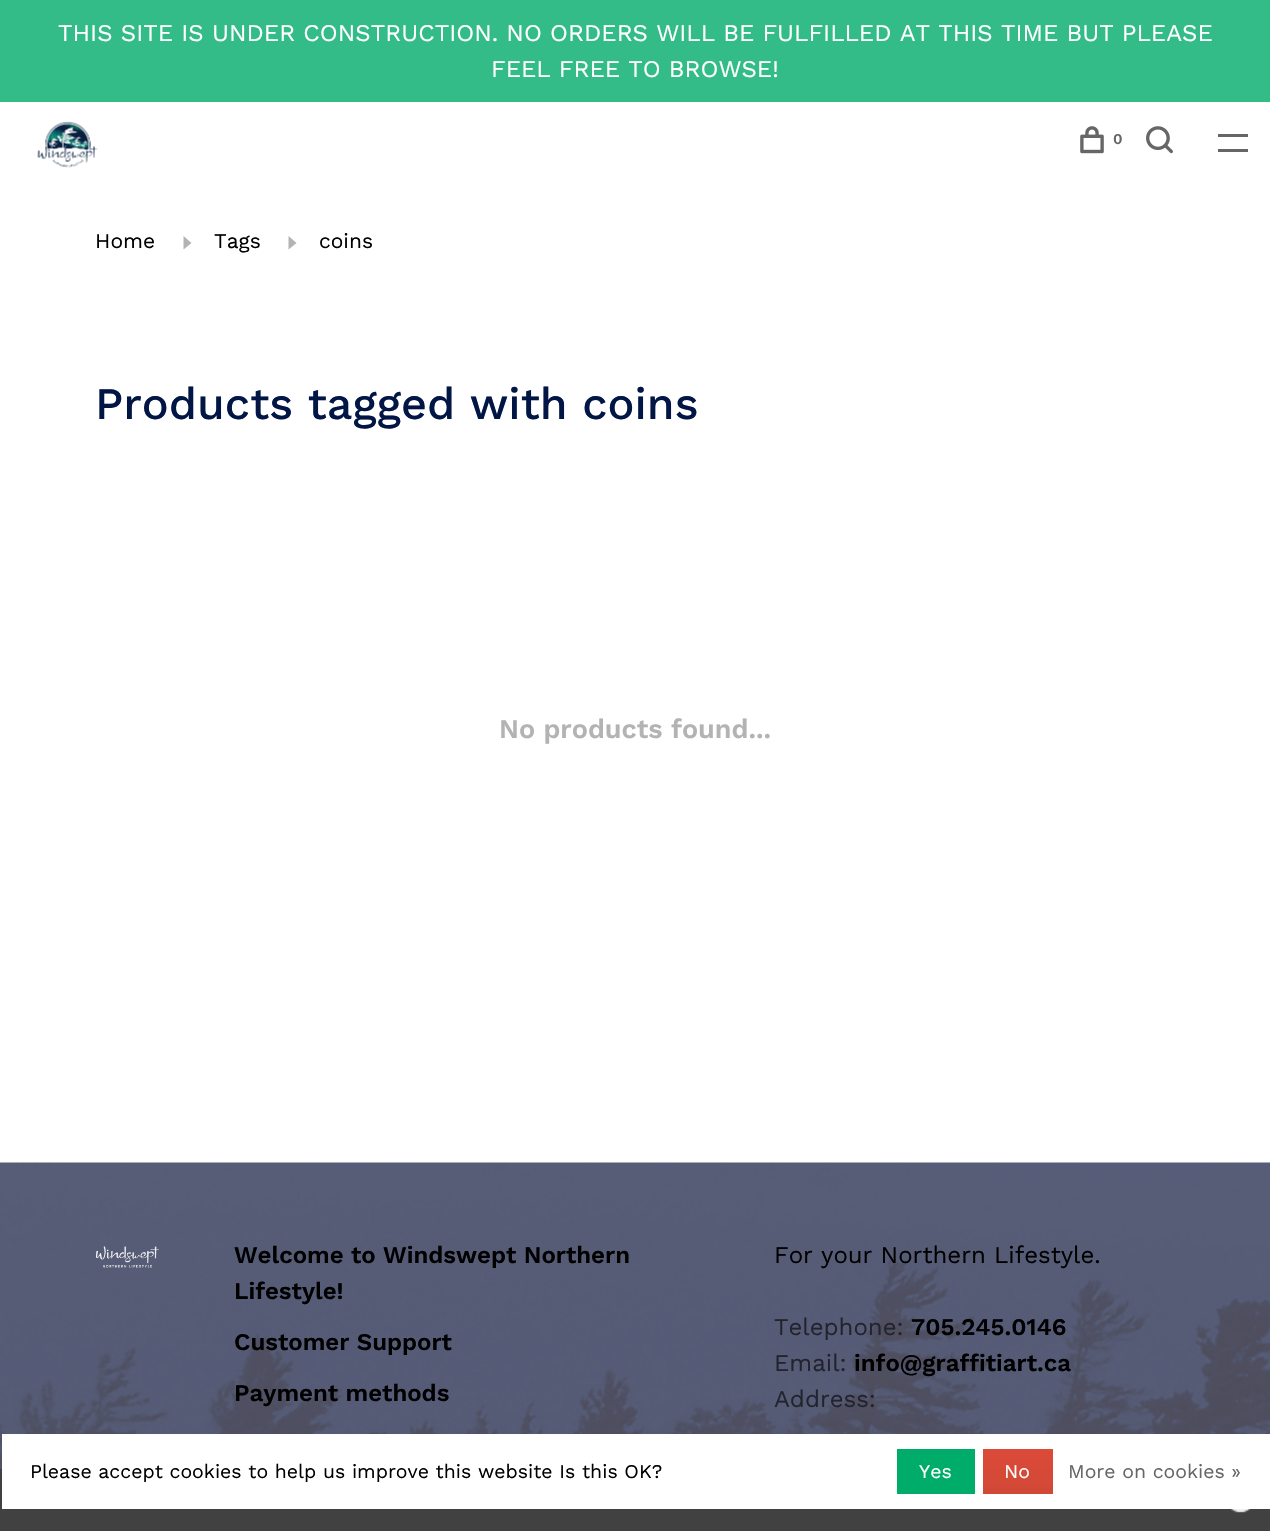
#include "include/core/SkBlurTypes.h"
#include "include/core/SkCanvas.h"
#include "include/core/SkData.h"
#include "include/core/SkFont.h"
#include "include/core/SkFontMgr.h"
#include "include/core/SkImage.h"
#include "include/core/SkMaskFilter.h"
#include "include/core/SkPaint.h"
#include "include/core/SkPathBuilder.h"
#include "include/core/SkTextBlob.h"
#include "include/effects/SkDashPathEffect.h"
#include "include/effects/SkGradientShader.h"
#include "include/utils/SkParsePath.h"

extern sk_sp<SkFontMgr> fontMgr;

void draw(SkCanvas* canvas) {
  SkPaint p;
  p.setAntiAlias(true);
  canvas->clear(SK_ColorWHITE);
  p.setColor(SkColorSetRGB(51, 188, 135));
  canvas->drawRect(SkRect::MakeLTRB(0, 0, 1270, 102), p);
  canvas->drawImageRect(SkImages::DeferredFromEncodedData(SkData::MakeFromFileName("images/1.png")), SkRect::MakeLTRB(37, 121, 98, 168), SkSamplingOptions());
  canvas->drawImageRect(SkImages::DeferredFromEncodedData(SkData::MakeFromFileName("images/2.png")), SkRect::MakeLTRB(1080, 126, 1104, 154), SkSamplingOptions());
  canvas->drawImageRect(SkImages::DeferredFromEncodedData(SkData::MakeFromFileName("images/3.png")), SkRect::MakeLTRB(1146, 126, 1173, 154), SkSamplingOptions());
  p.setColor(SkColorSetRGB(102, 102, 102));
  canvas->drawRect(SkRect::MakeLTRB(1218, 134, 1248, 137), p);
  canvas->drawRect(SkRect::MakeLTRB(1218, 149, 1248, 152), p);
  p.setColor(SkColorSetRGB(179, 179, 179));
  canvas->drawPath(SkPathBuilder().moveTo(183.5f, 249.5f).lineTo(191.5f, 243).lineTo(183.5f, 236).close().detach(), p);
  canvas->drawPath(SkPathBuilder().moveTo(288.5f, 249.5f).lineTo(296.5f, 243).lineTo(288.5f, 236).close().detach(), p);
  canvas->drawImageRect(SkImages::DeferredFromEncodedData(SkData::MakeFromFileName("images/4.png")), SkRect::MakeLTRB(0, 1162, 1270, 1469), SkSamplingOptions());
  canvas->drawImageRect(SkImages::DeferredFromEncodedData(SkData::MakeFromFileName("images/5.png")), SkRect::MakeLTRB(96, 1246, 159, 1268), SkSamplingOptions());
  p.setColor(SkColorSetRGB(65, 65, 65));
  canvas->drawRect(SkRect::MakeLTRB(0, 1469, 1270, 1531), p);
  p.setColor(SK_ColorWHITE);
  canvas->drawRect(SkRect::MakeLTRB(2, 1434, 1270, 1509), p);
  p.setColor(SkColorSetRGB(0, 172, 105));
  canvas->drawRect(SkRect::MakeLTRB(897, 1449, 975, 1494), p);
  {
    const SkColor colors[] = {SkColorSetRGB(220, 74, 56), SkColorSetRGB(209, 72, 54)};
    const float stops[] = {0, 1};
    const SkPoint ends[] = {{1017, 1449}, {1017, 1494}};
    p.setShader(SkGradientShader::MakeLinear(ends, colors, stops, 2, SkTileMode::kClamp));
    p.setAlpha(255);
  }
  canvas->drawRect(SkRect::MakeLTRB(983, 1449, 1053, 1494), p);
  canvas->drawImageRect(SkImages::DeferredFromEncodedData(SkData::MakeFromFileName("images/6.png")), SkRect::MakeLTRB(1230, 1509, 1251, 1513), SkSamplingOptions());
  SkFont font1(fontMgr->matchFamilyStyle("Work Sans", SkFontStyle::Normal()), 24);
  font1.setSubpixel(true);
  p.setShader(nullptr);
  p.setColor(SK_ColorWHITE);
  canvas->drawString("THIS SITE IS UNDER CONSTRUCTION. NO ORDERS WILL BE FULFILLED AT THIS TIME BUT PLEASE", 58, 41, font1, p);
  canvas->drawString("FEEL FREE TO BROWSE!", 491, 77, font1, p);
  SkFont font2(fontMgr->matchFamilyStyle("Work Sans", SkFontStyle(600, SkFontStyle::kNormal_Width, SkFontStyle::kUpright_Slant)), 15);
  font2.setSubpixel(true);
  p.setColor(SkColorSetRGB(102, 102, 102));
  canvas->drawString("0", 1113, 144, font2, p);
  SkFont font3(fontMgr->matchFamilyStyle("Work Sans", SkFontStyle::Normal()), 21);
  font3.setSubpixel(true);
  p.setColor(SK_ColorBLACK);
  canvas->drawString("Home", 95, 248, font3, p);
  canvas->drawString("Tags", 214, 248, font3, p);
  canvas->drawString("coins", 319, 248, font3, p);
  SkFont font4(fontMgr->matchFamilyStyle("Work Sans", SkFontStyle(500, SkFontStyle::kNormal_Width, SkFontStyle::kUpright_Slant)), 45);
  font4.setSubpixel(true);
  p.setColor(SkColorSetRGB(1, 22, 69));
  canvas->drawString("Products tagged with coins", 95, 419, font4, p);
  SkFont font5(fontMgr->matchFamilyStyle("Work Sans", SkFontStyle(600, SkFontStyle::kNormal_Width, SkFontStyle::kUpright_Slant)), 27);
  font5.setSubpixel(true);
  p.setColor(SkColorSetRGB(179, 179, 179));
  canvas->drawString("No products found...", 499, 738, font5, p);
  SkFont font6(fontMgr->matchFamilyStyle("Work Sans", SkFontStyle(600, SkFontStyle::kNormal_Width, SkFontStyle::kUpright_Slant)), 24);
  font6.setSubpixel(true);
  p.setColor(SK_ColorBLACK);
  canvas->drawString("Welcome to Windswept Northern", 234, 1263, font6, p);
  canvas->drawString("Lifestyle!", 234, 1299, font6, p);
  canvas->drawString("Customer Support", 234, 1350, font6, p);
  canvas->drawString("Payment methods", 234, 1401, font6, p);
  canvas->drawString("For your Northern Lifestyle.", 774, 1263, font1, p);
  p.setColor(SkColorSetRGB(34, 35, 45));
  canvas->drawString("Telephone:", 774, 1335, font1, p);
  p.setColor(SK_ColorBLACK);
  canvas->drawString("705.245.0146", 911, 1335, font6, p);
  p.setColor(SkColorSetRGB(34, 35, 45));
  canvas->drawString("Email:", 774, 1371, font1, p);
  p.setColor(SK_ColorBLACK);
  canvas->drawString("info@graffitiart.ca", 854, 1371, font6, p);
  p.setColor(SkColorSetRGB(34, 35, 45));
  canvas->drawString("Address:", 774, 1407, font1, p);
  SkFont font7(fontMgr->matchFamilyStyle("Work Sans", SkFontStyle::Normal()), 19.5f);
  font7.setSubpixel(true);
  p.setColor(SK_ColorBLACK);
  canvas->drawString("Please accept cookies to help us improve this website Is this OK?", 30, 1478, font7, p);
  p.setColor(SK_ColorWHITE);
  canvas->drawString("Yes", 919, 1478, font7, p);
  canvas->drawString("No", 1004, 1478, font7, p);
  p.setColor(SkColorSetRGB(102, 102, 102));
  canvas->drawString("More on cookies »", 1068, 1478, font7, p);
}
